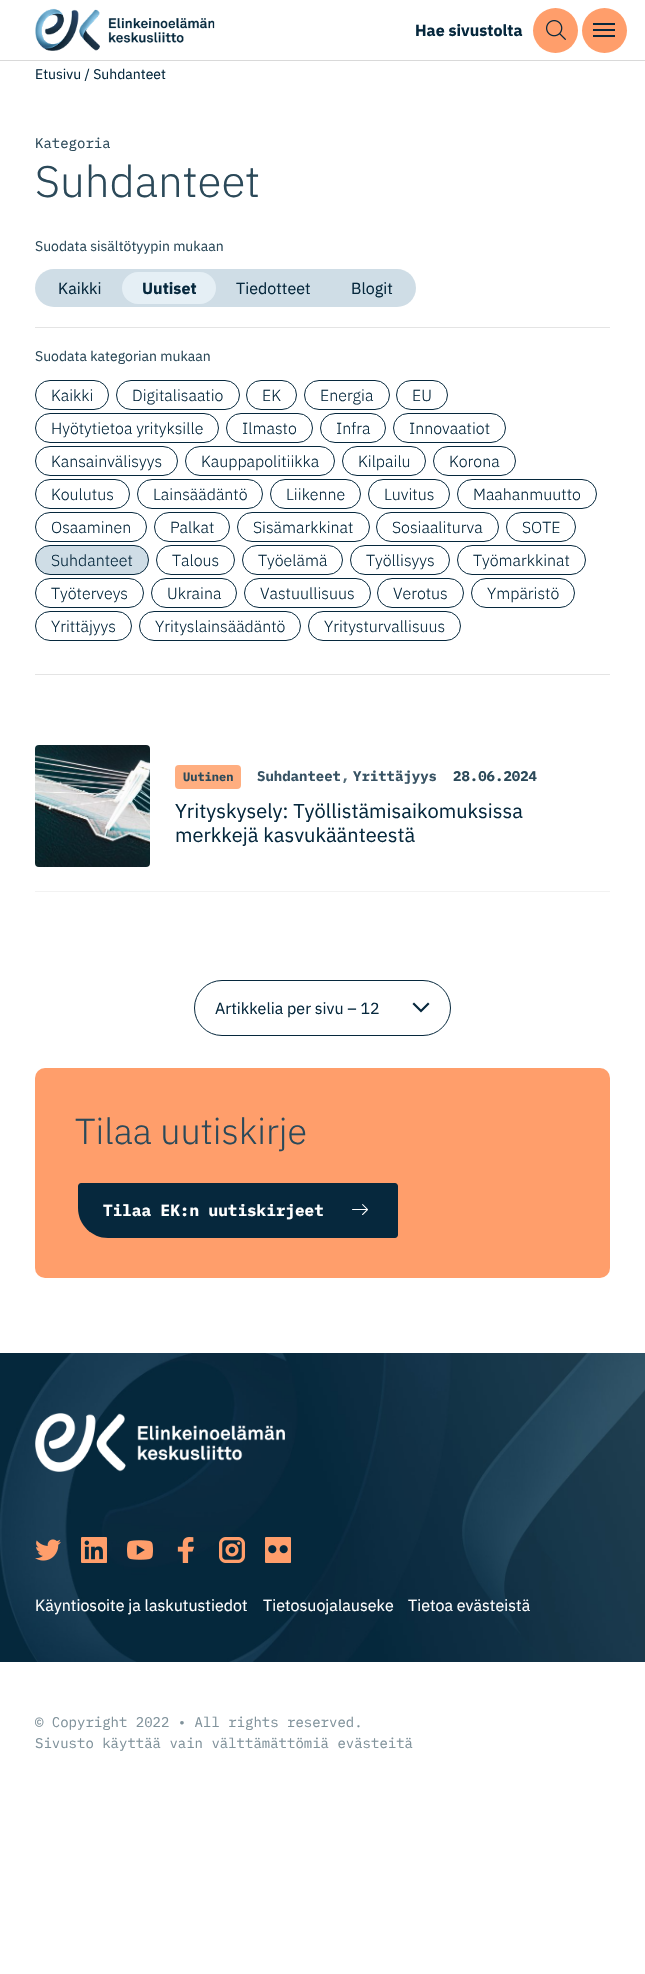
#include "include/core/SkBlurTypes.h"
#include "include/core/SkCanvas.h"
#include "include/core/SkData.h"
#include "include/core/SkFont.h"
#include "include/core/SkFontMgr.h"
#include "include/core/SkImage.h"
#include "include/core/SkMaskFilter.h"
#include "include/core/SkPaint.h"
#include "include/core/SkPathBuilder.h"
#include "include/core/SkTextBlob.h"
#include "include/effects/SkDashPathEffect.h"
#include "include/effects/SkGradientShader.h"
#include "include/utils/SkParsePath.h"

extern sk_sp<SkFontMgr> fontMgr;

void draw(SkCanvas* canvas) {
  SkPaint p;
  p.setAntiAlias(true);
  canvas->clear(SK_ColorWHITE);
  p.setColor(SkColorSetRGB(217, 217, 217));
  canvas->drawRect(SkRect::MakeLTRB(0, 60, 645, 61), p);
  canvas->drawImageRect(SkImages::DeferredFromEncodedData(SkData::MakeFromFileName("images/1.png")), SkRect::MakeLTRB(35, 8, 215, 51), SkSamplingOptions());
  p.setColor(SkColorSetRGB(255, 158, 107));
  canvas->drawCircle(555.5f, 30.5f, 22.5f, p);
  canvas->drawImageRect(SkImages::DeferredFromEncodedData(SkData::MakeFromFileName("images/2.png")), SkRect::MakeLTRB(546, 20, 566, 40), SkSamplingOptions());
  canvas->drawCircle(604.5f, 30.5f, 22.5f, p);
  p.setColor(SkColorSetRGB(6, 40, 61));
  canvas->drawRect(SkRect::MakeLTRB(593, 23, 615, 25), p);
  canvas->drawRect(SkRect::MakeLTRB(593, 29, 615, 31), p);
  canvas->drawRect(SkRect::MakeLTRB(593, 35, 615, 37), p);
  p.setColor(SkColorSetRGB(228, 228, 228));
  canvas->drawRect(SkRect::MakeLTRB(35, 327, 610, 328), p);
  p.setColor(SkColorSetRGB(207, 221, 230));
  canvas->drawRoundRect(SkRect::MakeLTRB(35, 269, 416, 307), 19, 19, p);
  p.setColor(SkColorSetRGB(229, 239, 245));
  canvas->drawRoundRect(SkRect::MakeLTRB(122, 272, 216, 304), 16, 16, p);
  p.setColor(SkColorSetRGB(228, 228, 228));
  canvas->drawRect(SkRect::MakeLTRB(35, 674, 610, 675), p);
  p.setStyle(SkPaint::kStroke_Style);
  p.setStrokeWidth(1);
  p.setColor(SkColorSetRGB(6, 40, 61));
  canvas->drawRoundRect(SkRect::MakeLTRB(35.5f, 380.5f, 108.5f, 409.5f), 14.5f, 14.5f, p);
  canvas->drawRoundRect(SkRect::MakeLTRB(116.5f, 380.5f, 239.5f, 409.5f), 14.5f, 14.5f, p);
  canvas->drawRoundRect(SkRect::MakeLTRB(246.5f, 380.5f, 296.5f, 409.5f), 14.5f, 14.5f, p);
  canvas->drawRoundRect(SkRect::MakeLTRB(304.5f, 380.5f, 389.5f, 409.5f), 14.5f, 14.5f, p);
  canvas->drawRoundRect(SkRect::MakeLTRB(396.5f, 380.5f, 447.5f, 409.5f), 14.5f, 14.5f, p);
  canvas->drawRoundRect(SkRect::MakeLTRB(35.5f, 413.5f, 218.5f, 442.5f), 14.5f, 14.5f, p);
  canvas->drawRoundRect(SkRect::MakeLTRB(226.5f, 413.5f, 312.5f, 442.5f), 14.5f, 14.5f, p);
  canvas->drawRoundRect(SkRect::MakeLTRB(320.5f, 413.5f, 385.5f, 442.5f), 14.5f, 14.5f, p);
  canvas->drawRoundRect(SkRect::MakeLTRB(393.5f, 413.5f, 505.5f, 442.5f), 14.5f, 14.5f, p);
  canvas->drawRoundRect(SkRect::MakeLTRB(35.5f, 446.5f, 177.5f, 475.5f), 14.5f, 14.5f, p);
  canvas->drawRoundRect(SkRect::MakeLTRB(185.5f, 446.5f, 334.5f, 475.5f), 14.5f, 14.5f, p);
  canvas->drawRoundRect(SkRect::MakeLTRB(342.5f, 446.5f, 425.5f, 475.5f), 14.5f, 14.5f, p);
  canvas->drawRoundRect(SkRect::MakeLTRB(433.5f, 446.5f, 515.5f, 475.5f), 14.5f, 14.5f, p);
  canvas->drawRoundRect(SkRect::MakeLTRB(35.5f, 479.5f, 129.5f, 508.5f), 14.5f, 14.5f, p);
  canvas->drawRoundRect(SkRect::MakeLTRB(137.5f, 479.5f, 262.5f, 508.5f), 14.5f, 14.5f, p);
  canvas->drawRoundRect(SkRect::MakeLTRB(270.5f, 479.5f, 360.5f, 508.5f), 14.5f, 14.5f, p);
  canvas->drawRoundRect(SkRect::MakeLTRB(368.5f, 479.5f, 449.5f, 508.5f), 14.5f, 14.5f, p);
  canvas->drawRoundRect(SkRect::MakeLTRB(457.5f, 479.5f, 596.5f, 508.5f), 14.5f, 14.5f, p);
  canvas->drawRoundRect(SkRect::MakeLTRB(35.5f, 512.5f, 146.5f, 541.5f), 14.5f, 14.5f, p);
  canvas->drawRoundRect(SkRect::MakeLTRB(154.5f, 512.5f, 229.5f, 541.5f), 14.5f, 14.5f, p);
  canvas->drawRoundRect(SkRect::MakeLTRB(237.5f, 512.5f, 369.5f, 541.5f), 14.5f, 14.5f, p);
  canvas->drawRoundRect(SkRect::MakeLTRB(376.5f, 512.5f, 498.5f, 541.5f), 14.5f, 14.5f, p);
  canvas->drawRoundRect(SkRect::MakeLTRB(506.5f, 512.5f, 575.5f, 541.5f), 14.5f, 14.5f, p);
  p.setStyle(SkPaint::kFill_Style);
  p.setColor(SkColorSetRGB(207, 221, 230));
  canvas->drawRoundRect(SkRect::MakeLTRB(35.5f, 545.5f, 148.5f, 574.5f), 14.5f, 14.5f, p);
  p.setStyle(SkPaint::kStroke_Style);
  p.setColor(SkColorSetRGB(6, 40, 61));
  canvas->drawRoundRect(SkRect::MakeLTRB(35.5f, 545.5f, 148.5f, 574.5f), 14.5f, 14.5f, p);
  canvas->drawRoundRect(SkRect::MakeLTRB(156.5f, 545.5f, 234.5f, 574.5f), 14.5f, 14.5f, p);
  canvas->drawRoundRect(SkRect::MakeLTRB(242.5f, 545.5f, 342.5f, 574.5f), 14.5f, 14.5f, p);
  canvas->drawRoundRect(SkRect::MakeLTRB(350.5f, 545.5f, 449.5f, 574.5f), 14.5f, 14.5f, p);
  canvas->drawRoundRect(SkRect::MakeLTRB(457.5f, 545.5f, 585.5f, 574.5f), 14.5f, 14.5f, p);
  canvas->drawRoundRect(SkRect::MakeLTRB(35.5f, 578.5f, 143.5f, 607.5f), 14.5f, 14.5f, p);
  canvas->drawRoundRect(SkRect::MakeLTRB(151.5f, 578.5f, 236.5f, 607.5f), 14.5f, 14.5f, p);
  canvas->drawRoundRect(SkRect::MakeLTRB(244.5f, 578.5f, 370.5f, 607.5f), 14.5f, 14.5f, p);
  canvas->drawRoundRect(SkRect::MakeLTRB(377.5f, 578.5f, 463.5f, 607.5f), 14.5f, 14.5f, p);
  canvas->drawRoundRect(SkRect::MakeLTRB(471.5f, 578.5f, 574.5f, 607.5f), 14.5f, 14.5f, p);
  canvas->drawRoundRect(SkRect::MakeLTRB(35.5f, 611.5f, 131.5f, 640.5f), 14.5f, 14.5f, p);
  canvas->drawRoundRect(SkRect::MakeLTRB(139.5f, 611.5f, 300.5f, 640.5f), 14.5f, 14.5f, p);
  canvas->drawRoundRect(SkRect::MakeLTRB(308.5f, 611.5f, 460.5f, 640.5f), 14.5f, 14.5f, p);
  p.setStyle(SkPaint::kFill_Style);
  p.setColor(SkColorSetRGB(242, 242, 242));
  canvas->drawRect(SkRect::MakeLTRB(35, 891, 610, 892), p);
  canvas->drawImageRect(SkImages::DeferredFromEncodedData(SkData::MakeFromFileName("images/3.png")), SkRect::MakeLTRB(35, 745, 150, 867), SkSamplingOptions());
  p.setColor(SkColorSetRGB(255, 174, 128));
  canvas->drawRoundRect(SkRect::MakeLTRB(175, 765, 241, 789), 4, 4, p);
  p.setStyle(SkPaint::kStroke_Style);
  p.setStrokeWidth(2.2f);
  p.setStrokeCap(SkPaint::kSquare_Cap);
  p.setColor(SkColorSetRGB(6, 40, 61));
  canvas->drawPath(SkPathBuilder().moveTo(428, 1004).lineTo(421, 1011).lineTo(414, 1004).detach(), p);
  p.setStrokeWidth(1);
  p.setStrokeCap(SkPaint::kButt_Cap);
  canvas->drawRoundRect(SkRect::MakeLTRB(194.5f, 980.5f, 450.5f, 1035.5f), 27.5f, 27.5f, p);
  p.setStyle(SkPaint::kFill_Style);
  p.setColor(SkColorSetRGB(255, 158, 107));
  canvas->drawRoundRect(SkRect::MakeLTRB(35, 1068, 610, 1278), 10, 10, p);
  p.setColor(SkColorSetRGB(6, 40, 61));
  canvas->drawPath(SkPathBuilder().moveTo(81, 1183).lineTo(395, 1183).cubicTo(396.5f, 1183, 398, 1184.5f, 398, 1186).lineTo(398, 1235).cubicTo(398, 1236.5f, 396.5f, 1238, 395, 1238).lineTo(108, 1238).cubicTo(91.5f, 1238, 78, 1224.5f, 78, 1208).lineTo(78, 1186).cubicTo(78, 1184.5f, 79.5f, 1183, 81, 1183).close().detach(), p);
  canvas->drawImageRect(SkImages::DeferredFromEncodedData(SkData::MakeFromFileName("images/4.png")), SkRect::MakeLTRB(352, 1204, 368, 1215), SkSamplingOptions());
  canvas->drawImageRect(SkImages::DeferredFromEncodedData(SkData::MakeFromFileName("images/5.png")), SkRect::MakeLTRB(0, 1353, 645, 1662), SkSamplingOptions());
  canvas->drawImageRect(SkImages::DeferredFromEncodedData(SkData::MakeFromFileName("images/6.png")), SkRect::MakeLTRB(35, 1413, 285, 1472), SkSamplingOptions());
  canvas->drawImageRect(SkImages::DeferredFromEncodedData(SkData::MakeFromFileName("images/7.png")), SkRect::MakeLTRB(35, 1539, 61, 1561), SkSamplingOptions());
  canvas->drawImageRect(SkImages::DeferredFromEncodedData(SkData::MakeFromFileName("images/8.png")), SkRect::MakeLTRB(81, 1537, 107, 1563), SkSamplingOptions());
  canvas->drawImageRect(SkImages::DeferredFromEncodedData(SkData::MakeFromFileName("images/9.png")), SkRect::MakeLTRB(127, 1540, 153, 1560), SkSamplingOptions());
  canvas->drawImageRect(SkImages::DeferredFromEncodedData(SkData::MakeFromFileName("images/10.png")), SkRect::MakeLTRB(177, 1537, 195, 1563), SkSamplingOptions());
  canvas->drawImageRect(SkImages::DeferredFromEncodedData(SkData::MakeFromFileName("images/11.png")), SkRect::MakeLTRB(219, 1537, 245, 1563), SkSamplingOptions());
  canvas->drawImageRect(SkImages::DeferredFromEncodedData(SkData::MakeFromFileName("images/12.png")), SkRect::MakeLTRB(265, 1537, 291, 1563), SkSamplingOptions());
  SkFont font1(fontMgr->matchFamilyStyle("IBM Plex Sans", SkFontStyle::Bold()), 16);
  font1.setSubpixel(true);
  canvas->drawString("Hae sivustolta", 415, 36, font1, p);
  SkFont font2(fontMgr->matchFamilyStyle("IBM Plex Sans", SkFontStyle::Normal()), 14);
  font2.setSubpixel(true);
  canvas->drawString("Etusivu / Suhdanteet", 35, 79, font2, p);
  SkFont font3(fontMgr->matchFamilyStyle("IBM Plex Mono", SkFontStyle::Normal()), 14);
  font3.setSubpixel(true);
  p.setColor(SkColorSetRGB(43, 73, 89));
  canvas->drawString("Kategoria", 35, 148, font3, p);
  SkFont font4(fontMgr->matchFamilyStyle("IBM Plex Sans", SkFontStyle(300, SkFontStyle::kNormal_Width, SkFontStyle::kUpright_Slant)), 44);
  font4.setSubpixel(true);
  canvas->drawString("Suhdanteet", 35, 197, font4, p);
  canvas->drawString("Suodata sisältötyypin mukaan", 35, 251, font2, p);
  SkFont font5(fontMgr->matchFamilyStyle("IBM Plex Sans", SkFontStyle::Normal()), 16);
  font5.setSubpixel(true);
  p.setColor(SkColorSetRGB(6, 40, 61));
  canvas->drawString("Kaikki", 58, 294, font5, p);
  canvas->drawString("Uutiset", 142, 294, font1, p);
  canvas->drawString("Tiedotteet", 236, 294, font5, p);
  canvas->drawString("Blogit", 351, 294, font5, p);
  p.setColor(SkColorSetRGB(43, 73, 89));
  canvas->drawString("Suodata kategorian mukaan", 35, 361, font2, p);
  SkFont font6(fontMgr->matchFamilyStyle("IBM Plex Sans", SkFontStyle(300, SkFontStyle::kNormal_Width, SkFontStyle::kUpright_Slant)), 16);
  font6.setSubpixel(true);
  p.setColor(SkColorSetRGB(6, 40, 61));
  canvas->drawString("Kaikki", 51, 401, font6, p);
  canvas->drawString("Digitalisaatio", 132, 401, font6, p);
  canvas->drawString("EK", 262, 401, font6, p);
  canvas->drawString("Energia", 320, 401, font6, p);
  canvas->drawString("EU", 412, 401, font6, p);
  canvas->drawString("Hyötytietoa yrityksille", 51, 434, font6, p);
  canvas->drawString("Ilmasto", 242, 434, font6, p);
  canvas->drawString("Infra", 336, 434, font6, p);
  canvas->drawString("Innovaatiot", 409, 434, font6, p);
  canvas->drawString("Kansainvälisyys", 51, 467, font6, p);
  canvas->drawString("Kauppapolitiikka", 201, 467, font6, p);
  canvas->drawString("Kilpailu", 358, 467, font6, p);
  canvas->drawString("Korona", 449, 467, font6, p);
  canvas->drawString("Koulutus", 51, 500, font6, p);
  canvas->drawString("Lainsäädäntö", 153, 500, font6, p);
  canvas->drawString("Liikenne", 286, 500, font6, p);
  canvas->drawString("Luvitus", 384, 500, font6, p);
  canvas->drawString("Maahanmuutto", 473, 500, font6, p);
  canvas->drawString("Osaaminen", 51, 533, font6, p);
  canvas->drawString("Palkat", 170, 533, font6, p);
  canvas->drawString("Sisämarkkinat", 253, 533, font6, p);
  canvas->drawString("Sosiaaliturva", 392, 533, font6, p);
  canvas->drawString("SOTE", 522, 533, font6, p);
  canvas->drawString("Suhdanteet", 51, 566, font6, p);
  canvas->drawString("Talous", 172, 566, font6, p);
  canvas->drawString("Työelämä", 258, 566, font6, p);
  canvas->drawString("Työllisyys", 366, 566, font6, p);
  canvas->drawString("Työmarkkinat", 473, 566, font6, p);
  canvas->drawString("Työterveys", 51, 599, font6, p);
  canvas->drawString("Ukraina", 167, 599, font6, p);
  canvas->drawString("Vastuullisuus", 260, 599, font6, p);
  canvas->drawString("Verotus", 393, 599, font6, p);
  canvas->drawString("Ympäristö", 487, 599, font6, p);
  canvas->drawString("Yrittäjyys", 51, 632, font6, p);
  canvas->drawString("Yrityslainsäädäntö", 155, 632, font6, p);
  canvas->drawString("Yritysturvallisuus", 324, 632, font6, p);
  SkFont font7(fontMgr->matchFamilyStyle("IBM Plex Mono", SkFontStyle::Bold()), 12);
  font7.setSubpixel(true);
  p.setColor(SkColorSetRGB(43, 73, 89));
  canvas->drawString("Uutinen", 183, 781, font7, p);
  SkFont font8(fontMgr->matchFamilyStyle("IBM Plex Mono", SkFontStyle::Bold()), 14);
  font8.setSubpixel(true);
  p.setColor(SkColorSetRGB(56, 83, 100));
  canvas->drawString("Suhdanteet", 257, 781, font8, p);
  p.setColor(SkColorSetRGB(85, 109, 122));
  canvas->drawString(",", 341, 781, font8, p);
  p.setColor(SkColorSetRGB(56, 83, 100));
  canvas->drawString("Yrittäjyys", 353, 781, font8, p);
  p.setColor(SkColorSetRGB(43, 73, 89));
  canvas->drawString("28.06.2024", 453, 781, font8, p);
  SkFont font9(fontMgr->matchFamilyStyle("IBM Plex Sans", SkFontStyle::Normal()), 20);
  font9.setSubpixel(true);
  p.setColor(SkColorSetRGB(6, 40, 61));
  canvas->drawString("Yrityskysely: Työllistämisaikomuksissa", 175, 818, font9, p);
  canvas->drawString("merkkejä kasvukäänteestä", 175, 842, font9, p);
  canvas->drawString("Artikkelia per sivu – 12", 215, 1014, font5, p);
  SkFont font10(fontMgr->matchFamilyStyle("IBM Plex Sans", SkFontStyle(300, SkFontStyle::kNormal_Width, SkFontStyle::kUpright_Slant)), 36);
  font10.setSubpixel(true);
  p.setColor(SkColorSetRGB(43, 73, 89));
  canvas->drawString("Tilaa uutiskirje", 75, 1144, font10, p);
  SkFont font11(fontMgr->matchFamilyStyle("IBM Plex Mono", SkFontStyle::Bold()), 16);
  font11.setSubpixel(true);
  p.setColor(SK_ColorWHITE);
  canvas->drawString("Tilaa EK:n uutiskirjeet", 103, 1216, font11, p);
  canvas->drawString("Käyntiosoite ja laskutustiedot", 35, 1611, font5, p);
  canvas->drawString("Tietosuojalauseke", 263, 1611, font5, p);
  canvas->drawString("Tietoa evästeistä", 408, 1611, font5, p);
  p.setColor(SkColorSetRGB(128, 146, 155));
  canvas->drawString("© Copyright 2022 • All rights reserved.", 35, 1727, font3, p);
  canvas->drawString("Sivusto käyttää vain välttämättömiä evästeitä", 35, 1748, font3, p);
}
